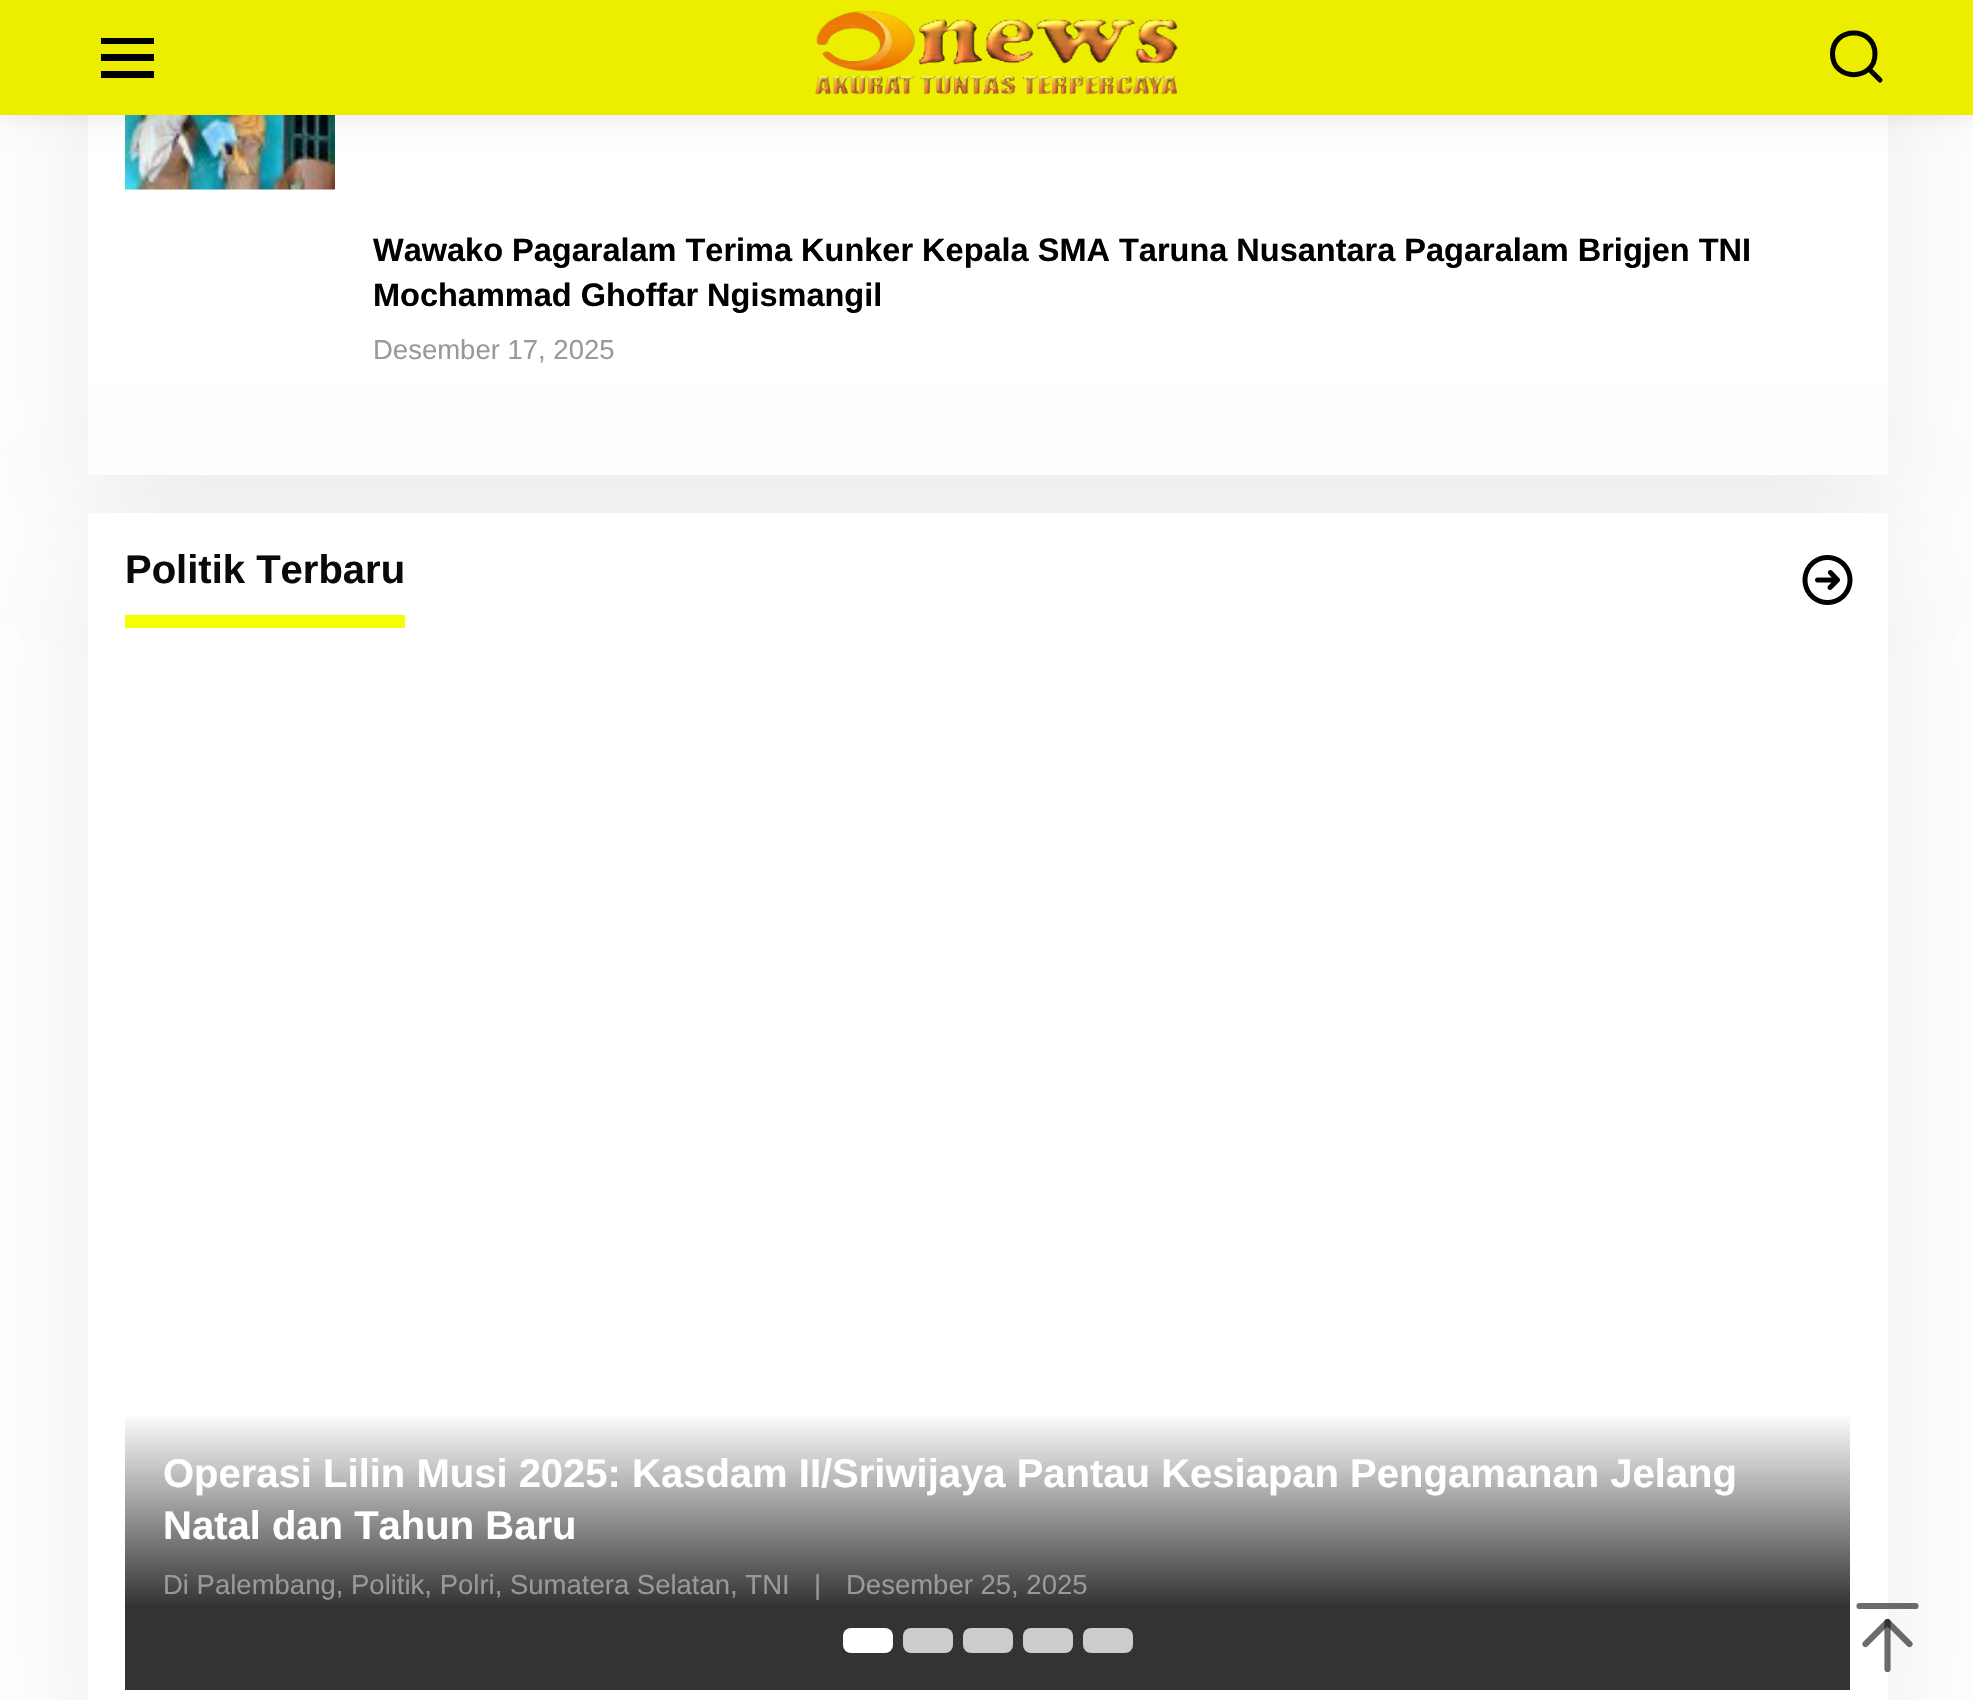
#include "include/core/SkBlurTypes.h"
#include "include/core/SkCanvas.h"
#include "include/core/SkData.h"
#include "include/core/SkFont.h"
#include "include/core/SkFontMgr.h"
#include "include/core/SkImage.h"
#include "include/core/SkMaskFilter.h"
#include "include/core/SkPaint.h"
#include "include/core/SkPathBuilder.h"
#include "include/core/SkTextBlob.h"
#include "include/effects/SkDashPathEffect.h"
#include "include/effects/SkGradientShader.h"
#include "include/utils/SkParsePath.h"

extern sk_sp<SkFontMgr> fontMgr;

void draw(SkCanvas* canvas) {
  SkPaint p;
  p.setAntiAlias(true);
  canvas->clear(SK_ColorWHITE);
  p.setColor(SkColorSetARGB(18, 0, 0, 0));
  p.setMaskFilter(SkMaskFilter::MakeBlur(kNormal_SkBlurStyle, 56));
  canvas->drawRect(SkRect::MakeLTRB(88, -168, 1888, 515), p);
  p.setMaskFilter(nullptr);
  p.setColor(SK_ColorWHITE);
  canvas->drawRect(SkRect::MakeLTRB(88, 115, 1888, 475), p);
  canvas->drawImageRect(SkImages::DeferredFromEncodedData(SkData::MakeFromFileName("images/2.png")), SkRect::MakeLTRB(125, 115, 335, 190), SkSamplingOptions());
  p.setColor(SkColorSetARGB(26, 0, 0, 0));
  p.setMaskFilter(SkMaskFilter::MakeBlur(kNormal_SkBlurStyle, 12.5f));
  canvas->drawRect(SkRect::MakeLTRB(0, 0, 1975, 115), p);
  p.setMaskFilter(nullptr);
  p.setColor(SkColorSetRGB(237, 237, 0));
  canvas->drawRect(SkRect::MakeLTRB(0, 0, 1973, 115), p);
  p.setColor(SK_ColorBLACK);
  canvas->drawPath(SkPathBuilder().moveTo(101, 38).lineTo(154, 38).lineTo(154, 44).lineTo(101, 44).close().moveTo(101, 54).lineTo(154, 54).lineTo(154, 61).lineTo(101, 61).close().moveTo(101, 71).lineTo(154, 71).lineTo(154, 78).lineTo(101, 78).close().detach(), p);
  canvas->drawImageRect(SkImages::DeferredFromEncodedData(SkData::MakeFromFileName("images/1.png")), SkRect::MakeLTRB(815, 11, 1178, 95), SkSamplingOptions());
  p.setStyle(SkPaint::kStroke_Style);
  p.setStrokeWidth(5);
  p.setStrokeCap(SkPaint::kRound_Cap);
  canvas->drawPath(SkPathBuilder().moveTo(1880, 80).lineTo(1869, 69).moveTo(1875, 54).cubicTo(1875, 81.5f, 1832.5f, 81.5f, 1832.5f, 54).cubicTo(1832.5f, 26, 1875, 26, 1875, 54).close().detach(), p);
  p.setStyle(SkPaint::kFill_Style);
  p.setColor(SkColorSetARGB(18, 0, 0, 0));
  p.setMaskFilter(SkMaskFilter::MakeBlur(kNormal_SkBlurStyle, 56));
  canvas->drawRect(SkRect::MakeLTRB(88, 553, 1888, 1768), p);
  p.setMaskFilter(nullptr);
  p.setColor(SK_ColorWHITE);
  canvas->drawRect(SkRect::MakeLTRB(88, 513, 1888, 1700), p);
  p.setColor(SkColorSetRGB(246, 255, 0));
  canvas->drawRect(SkRect::MakeLTRB(125, 615, 405, 628), p);
  canvas->drawImageRect(SkImages::DeferredFromEncodedData(SkData::MakeFromFileName("images/3.png")), SkRect::MakeLTRB(1802, 555, 1853, 605), SkSamplingOptions());
  {
    const SkColor colors[] = {SK_ColorWHITE, SkColorSetRGB(51, 51, 51)};
    const float stops[] = {0, 0.7f};
    const SkPoint ends[] = {{988, 1413}, {988, 1690}};
    p.setShader(SkGradientShader::MakeLinear(ends, colors, stops, 2, SkTileMode::kClamp));
    p.setAlpha(255);
  }
  canvas->drawRect(SkRect::MakeLTRB(125, 1415, 1850, 1690), p);
  p.setShader(nullptr);
  p.setColor(SK_ColorWHITE);
  canvas->drawRoundRect(SkRect::MakeLTRB(843, 1628, 893, 1653), 8, 8, p);
  p.setColor(SkColorSetRGB(204, 204, 204));
  canvas->drawRoundRect(SkRect::MakeLTRB(903, 1628, 953, 1653), 8, 8, p);
  canvas->drawRoundRect(SkRect::MakeLTRB(963, 1628, 1013, 1653), 8, 8, p);
  canvas->drawRoundRect(SkRect::MakeLTRB(1023, 1628, 1073, 1653), 8, 8, p);
  canvas->drawRoundRect(SkRect::MakeLTRB(1083, 1628, 1133, 1653), 8, 8, p);
  p.setStyle(SkPaint::kStroke_Style);
  p.setStrokeWidth(6.2f);
  p.setStrokeJoin(SkPaint::kRound_Join);
  p.setColor(SkColorSetARGB(153, 10, 10, 10));
  canvas->drawPath(SkPathBuilder().moveTo(1887.5f, 1669).lineTo(1887.5f, 1622).detach(), p);
  canvas->drawPath(SkPathBuilder().moveTo(1865.5f, 1644).lineTo(1887.5f, 1622).lineTo(1909.5f, 1644).moveTo(1859.5f, 1606).lineTo(1915.5f, 1606).detach(), p);
  SkFont font1(fontMgr->matchFamilyStyle("Liberation Sans", SkFontStyle::Bold()), 32.5f);
  font1.setSubpixel(true);
  p.setStyle(SkPaint::kFill_Style);
  p.setColor(SK_ColorBLACK);
  canvas->drawString("Wawako Pagaralam Terima Kunker Kepala SMA Taruna Nusantara Pagaralam Brigjen TNI", 373, 261, font1, p);
  canvas->drawString("Mochammad Ghoffar Ngismangil", 373, 306, font1, p);
  SkFont font2(fontMgr->matchFamilyStyle("Liberation Sans", SkFontStyle::Normal()), 27.5f);
  font2.setSubpixel(true);
  p.setColor(SkColorSetRGB(153, 153, 153));
  canvas->drawString("Desember 17, 2025", 373, 359, font2, p);
  SkFont font3(fontMgr->matchFamilyStyle("Liberation Sans", SkFontStyle::Bold()), 40);
  font3.setSubpixel(true);
  p.setColor(SkColorSetRGB(10, 10, 10));
  canvas->drawString("Politik Terbaru", 125, 583, font3, p);
  p.setColor(SK_ColorWHITE);
  canvas->drawString("Operasi Lilin Musi 2025: Kasdam II/Sriwijaya Pantau Kesiapan Pengamanan Jelang", 163, 1487, font3, p);
  canvas->drawString("Natal dan Tahun Baru", 163, 1539, font3, p);
  p.setColor(SkColorSetRGB(153, 153, 153));
  canvas->drawString("Di Palembang, Politik, Polri, Sumatera Selatan, TNI", 163, 1594, font2, p);
  canvas->drawString("|", 814, 1594, font2, p);
  canvas->drawString("Desember 25, 2025", 846, 1594, font2, p);
}
